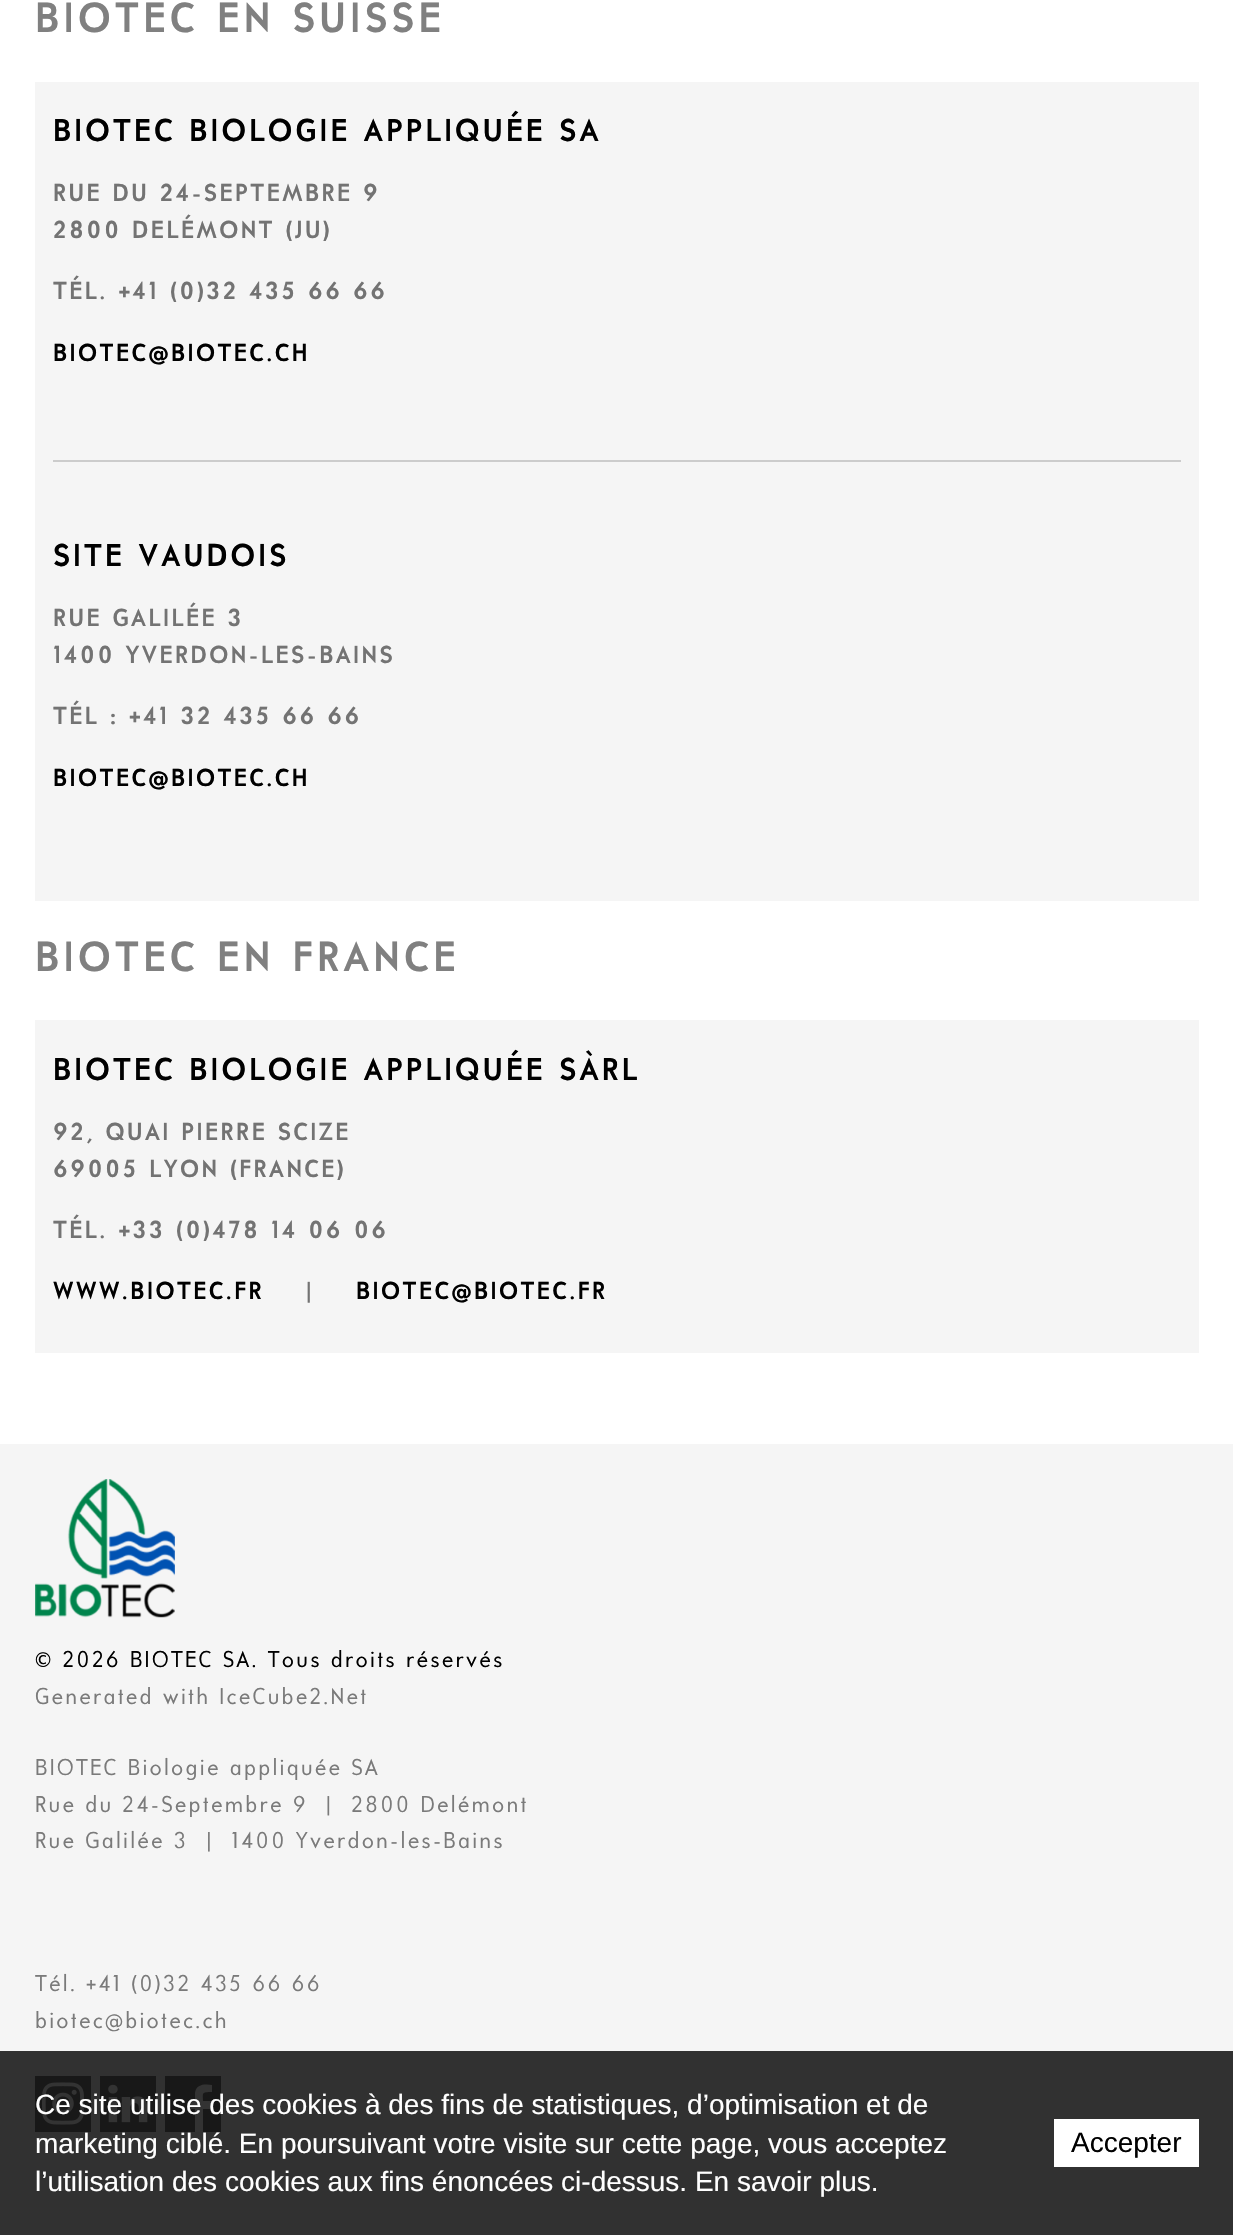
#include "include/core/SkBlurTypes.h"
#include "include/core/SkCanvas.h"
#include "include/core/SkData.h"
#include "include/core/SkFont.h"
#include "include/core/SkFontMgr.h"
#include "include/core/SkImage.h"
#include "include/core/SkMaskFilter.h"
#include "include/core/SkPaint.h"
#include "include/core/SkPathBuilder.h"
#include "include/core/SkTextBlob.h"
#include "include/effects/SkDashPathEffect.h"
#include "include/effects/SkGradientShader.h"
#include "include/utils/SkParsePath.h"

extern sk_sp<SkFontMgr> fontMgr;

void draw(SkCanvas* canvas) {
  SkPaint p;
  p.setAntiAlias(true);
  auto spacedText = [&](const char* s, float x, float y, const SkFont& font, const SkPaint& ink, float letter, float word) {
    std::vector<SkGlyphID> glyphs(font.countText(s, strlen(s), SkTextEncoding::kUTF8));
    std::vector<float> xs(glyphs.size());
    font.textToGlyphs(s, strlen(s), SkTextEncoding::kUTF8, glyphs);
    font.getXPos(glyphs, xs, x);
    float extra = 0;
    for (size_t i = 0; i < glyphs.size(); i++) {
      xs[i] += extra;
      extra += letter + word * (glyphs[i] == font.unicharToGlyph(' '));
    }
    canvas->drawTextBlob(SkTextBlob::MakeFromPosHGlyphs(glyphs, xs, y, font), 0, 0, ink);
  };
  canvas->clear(SkColorSetRGB(245, 245, 245));
  p.setColor(SkColorSetRGB(49, 49, 49));
  canvas->drawRect(SkRect::MakeLTRB(0, 2051, 1233, 2235), p);
  p.setColor(SK_ColorWHITE);
  canvas->drawRect(SkRect::MakeLTRB(0, 0, 1233, 1444), p);
  p.setColor(SkColorSetRGB(245, 245, 245));
  canvas->drawRect(SkRect::MakeLTRB(35, 82, 1199, 901), p);
  p.setColor(SkColorSetRGB(204, 204, 204));
  canvas->drawRect(SkRect::MakeLTRB(53, 460, 1181, 462), p);
  p.setColor(SkColorSetRGB(245, 245, 245));
  canvas->drawRect(SkRect::MakeLTRB(35, 1020, 1199, 1353), p);
  canvas->drawImageRect(SkImages::DeferredFromEncodedData(SkData::MakeFromFileName("images/1.png")), SkRect::MakeLTRB(35, 1479, 175, 1618), SkSamplingOptions());
  canvas->drawImageRect(SkImages::DeferredFromEncodedData(SkData::MakeFromFileName("images/2.png")), SkRect::MakeLTRB(35, 2076, 91, 2132), SkSamplingOptions());
  canvas->drawImageRect(SkImages::DeferredFromEncodedData(SkData::MakeFromFileName("images/3.png")), SkRect::MakeLTRB(100, 2076, 156, 2132), SkSamplingOptions());
  p.setColor(SkColorSetRGB(24, 24, 24));
  canvas->drawRect(SkRect::MakeLTRB(165, 2076, 221, 2132), p);
  p.setColor(SkColorSetRGB(51, 51, 51));
  canvas->drawPath(SkPathBuilder().moveTo(195, 2132).lineTo(195, 2109).lineTo(189, 2109).lineTo(189, 2101).lineTo(195, 2101).lineTo(195, 2093).cubicTo(196, 2084, 205, 2084, 212, 2085).lineTo(212, 2092).cubicTo(201, 2092, 203, 2093, 203, 2101).lineTo(212, 2101).lineTo(211, 2109).lineTo(203, 2109).lineTo(203, 2132).close().detach(), p);
  p.setColor(SK_ColorWHITE);
  canvas->drawRect(SkRect::MakeLTRB(1054, 2119, 1199, 2167), p);
  SkFont font1(fontMgr->matchFamilyStyle("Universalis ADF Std", SkFontStyle::Bold()), 42);
  font1.setSubpixel(true);
  p.setColor(SkColorSetRGB(128, 128, 128));
  spacedText("BIOTEC EN SUISSE", 35, 32, font1, p, 4.25f, 0);
  SkFont font2(fontMgr->matchFamilyStyle("Universalis ADF Std", SkFontStyle::Bold()), 31.5f);
  font2.setSubpixel(true);
  p.setColor(SK_ColorBLACK);
  spacedText("BIOTEC BIOLOGIE APPLIQUÉE SA", 53, 141, font2, p, 3.15f, 0);
  SkFont font3(fontMgr->matchFamilyStyle("Universalis ADF Std", SkFontStyle::Bold()), 24.5f);
  font3.setSubpixel(true);
  p.setColor(SkColorSetRGB(115, 115, 115));
  spacedText("RUE DU 24-SEPTEMBRE 9", 53, 201, font3, p, 2.45f, 0);
  spacedText("2800 DELÉMONT (JU)", 53, 238, font3, p, 2.45f, 0);
  spacedText("TÉL. +41 (0)32 435 66 66", 53, 299, font3, p, 2.45f, 0);
  p.setColor(SK_ColorBLACK);
  spacedText("BIOTEC@BIOTEC.CH", 53, 361, font3, p, 2.45f, 0);
  spacedText("SITE VAUDOIS", 53, 566, font2, p, 3.15f, 0);
  p.setColor(SkColorSetRGB(115, 115, 115));
  spacedText("RUE GALILÉE 3", 53, 626, font3, p, 2.45f, 0);
  spacedText("1400 YVERDON-LES-BAINS", 53, 663, font3, p, 2.45f, 0);
  spacedText("TÉL : +41 32 435 66 66", 53, 724, font3, p, 2.45f, 0);
  p.setColor(SK_ColorBLACK);
  spacedText("BIOTEC@BIOTEC.CH", 53, 786, font3, p, 2.45f, 0);
  p.setColor(SkColorSetRGB(128, 128, 128));
  spacedText("BIOTEC EN FRANCE", 35, 971, font1, p, 4.25f, 0);
  p.setColor(SK_ColorBLACK);
  spacedText("BIOTEC BIOLOGIE APPLIQUÉE SÀRL", 53, 1080, font2, p, 3.15f, 0);
  p.setColor(SkColorSetRGB(115, 115, 115));
  spacedText("92, QUAI PIERRE SCIZE", 53, 1140, font3, p, 2.45f, 0);
  spacedText("69005 LYON (FRANCE)", 53, 1177, font3, p, 2.45f, 0);
  spacedText("TÉL. +33 (0)478 14 06 06", 53, 1238, font3, p, 2.45f, 0);
  p.setColor(SK_ColorBLACK);
  spacedText("WWW.BIOTEC.FR", 53, 1299, font3, p, 2.45f, 0);
  p.setColor(SkColorSetRGB(115, 115, 115));
  spacedText("|", 306, 1299, font3, p, 2.45f, 0);
  p.setColor(SK_ColorBLACK);
  spacedText("BIOTEC@BIOTEC.FR", 356, 1299, font3, p, 2.45f, 0);
  SkFont font4(fontMgr->matchFamilyStyle("Universalis ADF Std", SkFontStyle::Normal()), 22.75f);
  font4.setSubpixel(true);
  spacedText("© 2026 BIOTEC SA. Tous droits réservés", 35, 1667, font4, p, 2.25f, 0);
  p.setColor(SkColorSetRGB(122, 122, 122));
  spacedText("Generated with IceCube2.Net", 35, 1704, font4, p, 2.25f, 0);
  spacedText("BIOTEC Biologie appliquée SA", 35, 1775, font4, p, 2.25f, 0);
  spacedText("Rue du 24-Septembre 9  |  2800 Delémont", 35, 1812, font4, p, 2.25f, 0);
  spacedText("Rue Galilée 3  |  1400 Yverdon-les-Bains", 35, 1848, font4, p, 2.25f, 0);
  spacedText("Tél. +41 (0)32 435 66 66", 35, 1991, font4, p, 2.25f, 0);
  spacedText("biotec@biotec.ch", 35, 2028, font4, p, 2.25f, 0);
  SkFont font5(fontMgr->matchFamilyStyle("Liberation Sans", SkFontStyle::Normal()), 28);
  font5.setSubpixel(true);
  p.setColor(SK_ColorWHITE);
  canvas->drawString("Ce site utilise des cookies à des fins de statistiques, d’optimisation et de", 35, 2114, font5, p);
  canvas->drawString("marketing ciblé. En poursuivant votre visite sur cette page, vous acceptez", 35, 2153, font5, p);
  canvas->drawString("l’utilisation des cookies aux fins énoncées ci-dessus. En savoir plus.", 35, 2191, font5, p);
  p.setColor(SK_ColorBLACK);
  canvas->drawString("Accepter", 1071, 2152, font5, p);
}
